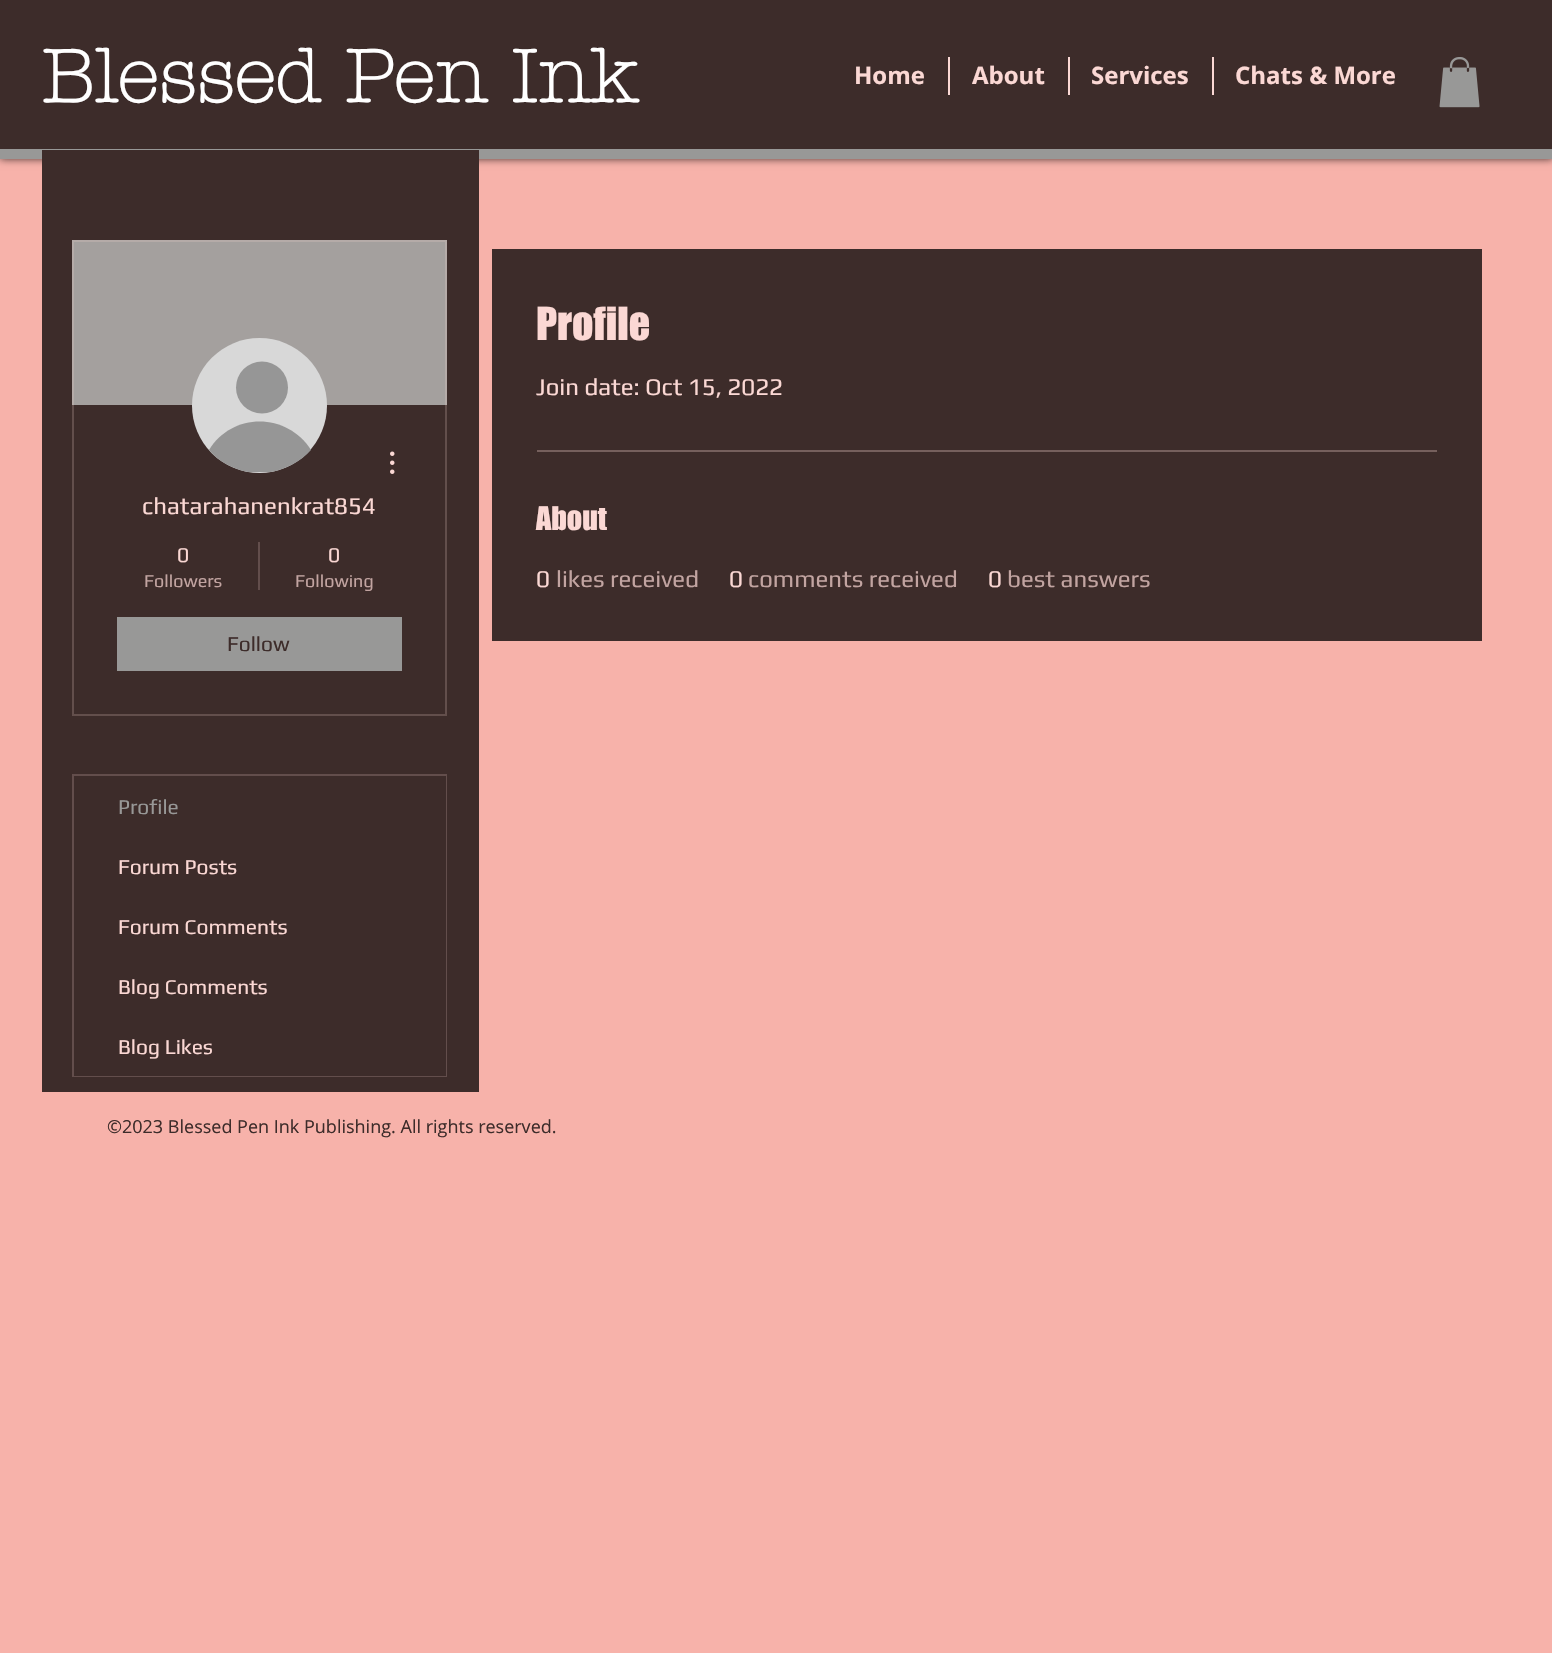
#include "include/core/SkBlurTypes.h"
#include "include/core/SkCanvas.h"
#include "include/core/SkData.h"
#include "include/core/SkFont.h"
#include "include/core/SkFontMgr.h"
#include "include/core/SkImage.h"
#include "include/core/SkMaskFilter.h"
#include "include/core/SkPaint.h"
#include "include/core/SkPathBuilder.h"
#include "include/core/SkTextBlob.h"
#include "include/effects/SkDashPathEffect.h"
#include "include/effects/SkGradientShader.h"
#include "include/utils/SkParsePath.h"

extern sk_sp<SkFontMgr> fontMgr;

void draw(SkCanvas* canvas) {
  SkPaint p;
  p.setAntiAlias(true);
  canvas->clear(SkColorSetRGB(247, 178, 170));
  p.setColor(SkColorSetARGB(179, 0, 0, 0));
  p.setMaskFilter(SkMaskFilter::MakeBlur(kNormal_SkBlurStyle, 4));
  canvas->drawRect(SkRect::MakeLTRB(0, 0, 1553, 159), p);
  p.setMaskFilter(nullptr);
  p.setColor(SkColorSetRGB(61, 44, 42));
  canvas->drawRect(SkRect::MakeLTRB(0, 0, 1552, 149), p);
  p.setColor(SkColorSetRGB(152, 152, 151));
  canvas->drawRect(SkRect::MakeLTRB(0, 149, 1552, 159), p);
  p.setColor(SkColorSetRGB(251, 216, 212));
  canvas->drawRect(SkRect::MakeLTRB(948, 57, 950, 95), p);
  canvas->drawRect(SkRect::MakeLTRB(1068, 57, 1070, 95), p);
  canvas->drawRect(SkRect::MakeLTRB(1212, 57, 1214, 95), p);
  canvas->drawImageRect(SkImages::DeferredFromEncodedData(SkData::MakeFromFileName("images/1.png")), SkRect::MakeLTRB(1439, 57, 1480, 108), SkSamplingOptions());
  p.setColor(SkColorSetRGB(61, 44, 42));
  canvas->drawRect(SkRect::MakeLTRB(492, 249, 1482, 641), p);
  p.setColor(SkColorSetRGB(118, 96, 93));
  canvas->drawRect(SkRect::MakeLTRB(537, 450, 1437, 452), p);
  p.setColor(SkColorSetRGB(61, 44, 42));
  canvas->drawRect(SkRect::MakeLTRB(42, 150, 479, 1092), p);
  p.setColor(SkColorSetRGB(164, 160, 158));
  canvas->drawRect(SkRect::MakeLTRB(72, 240, 447, 405), p);
  p.setStyle(SkPaint::kStroke_Style);
  p.setStrokeWidth(2);
  p.setColor(SkColorSetARGB(51, 251, 216, 212));
  canvas->drawRect(SkRect::MakeLTRB(73, 241, 446, 715), p);
  p.setStyle(SkPaint::kFill_Style);
  p.setColor(SkColorSetRGB(216, 216, 216));
  canvas->drawCircle(259.5f, 405.5f, 67.5f, p);
  p.setColor(SkColorSetRGB(150, 150, 150));
  canvas->drawCircle(262, 387.5f, 26, p);
  canvas->drawPath(SkPathBuilder().moveTo(248, 472).cubicTo(232, 469, 218, 461, 209, 450).cubicTo(232, 412, 287, 412, 311, 450).cubicTo(301, 461, 287, 469, 271, 472).close().detach(), p);
  canvas->drawImageRect(SkImages::DeferredFromEncodedData(SkData::MakeFromFileName("images/2.png")), SkRect::MakeLTRB(390, 451, 395, 474), SkSamplingOptions());
  p.setColor(SkColorSetRGB(99, 78, 76));
  canvas->drawRect(SkRect::MakeLTRB(258, 542, 260, 590), p);
  p.setColor(SkColorSetRGB(152, 152, 151));
  canvas->drawRect(SkRect::MakeLTRB(117, 617, 402, 671), p);
  p.setStyle(SkPaint::kStroke_Style);
  p.setColor(SkColorSetRGB(99, 78, 76));
  canvas->drawRect(SkRect::MakeLTRB(73, 775, 446, 1076), p);
  p.setStyle(SkPaint::kFill_Style);
  p.setColor(SkColorSetRGB(61, 44, 42));
  canvas->drawRect(SkRect::MakeLTRB(445, 776, 446, 1016), p);
  canvas->drawRect(SkRect::MakeLTRB(74, 1016, 446, 1076), p);
  SkFont font1(fontMgr->matchFamilyStyle("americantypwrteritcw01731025", SkFontStyle::Bold()), 75);
  font1.setSubpixel(true);
  p.setColor(SK_ColorWHITE);
  canvas->drawString("Blessed Pen Ink", 41, 102, font1, p);
  SkFont font2(fontMgr->matchFamilyStyle("Open Sans", SkFontStyle::Bold()), 24);
  font2.setSubpixel(true);
  p.setColor(SkColorSetRGB(251, 216, 212));
  canvas->drawString("Home", 854, 84, font2, p);
  canvas->drawString("About", 972, 84, font2, p);
  canvas->drawString("Services", 1091, 84, font2, p);
  canvas->drawString("Chats & More", 1235, 84, font2, p);
  SkFont font3(fontMgr->matchFamilyStyle("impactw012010", SkFontStyle::Normal()), 42);
  font3.setSubpixel(true);
  canvas->drawString("Profile", 536, 340, font3, p);
  SkFont font4(fontMgr->matchFamilyStyle("Play", SkFontStyle::Normal()), 24);
  font4.setSubpixel(true);
  canvas->drawString("Join date: Oct 15, 2022", 536, 395, font4, p);
  SkFont font5(fontMgr->matchFamilyStyle("impactw012010", SkFontStyle::Normal()), 30);
  font5.setSubpixel(true);
  canvas->drawString("About", 536, 530, font5, p);
  canvas->drawString("0", 536, 587, font4, p);
  p.setColor(SkColorSetRGB(194, 164, 161));
  canvas->drawString("likes received", 556, 587, font4, p);
  p.setColor(SkColorSetRGB(251, 216, 212));
  canvas->drawString("0", 729, 587, font4, p);
  p.setColor(SkColorSetRGB(194, 164, 161));
  canvas->drawString("comments received", 748, 587, font4, p);
  p.setColor(SkColorSetRGB(251, 216, 212));
  canvas->drawString("0", 988, 587, font4, p);
  p.setColor(SkColorSetRGB(194, 164, 161));
  canvas->drawString("best answers", 1007, 587, font4, p);
  p.setColor(SkColorSetRGB(251, 216, 212));
  canvas->drawString("chatarahanenkrat854", 142, 514, font4, p);
  SkFont font6(fontMgr->matchFamilyStyle("Play", SkFontStyle::Normal()), 21);
  font6.setSubpixel(true);
  canvas->drawString("0", 177, 562, font6, p);
  SkFont font7(fontMgr->matchFamilyStyle("Play", SkFontStyle::Normal()), 18);
  font7.setSubpixel(true);
  p.setColor(SkColorSetRGB(194, 164, 161));
  canvas->drawString("Followers", 144, 587, font7, p);
  p.setColor(SkColorSetRGB(251, 216, 212));
  canvas->drawString("0", 328, 562, font6, p);
  p.setColor(SkColorSetRGB(194, 164, 161));
  canvas->drawString("Following", 295, 587, font7, p);
  p.setColor(SkColorSetRGB(61, 44, 42));
  canvas->drawString("Follow", 227, 651, font6, p);
  p.setColor(SkColorSetRGB(152, 152, 151));
  canvas->drawString("Profile", 118, 814, font6, p);
  p.setColor(SkColorSetRGB(251, 216, 212));
  canvas->drawString("Forum Posts", 118, 874, font6, p);
  canvas->drawString("Forum Comments", 118, 934, font6, p);
  canvas->drawString("Blog Comments", 118, 994, font6, p);
  canvas->drawString("Blog Likes", 118, 1054, font6, p);
  SkFont font8(fontMgr->matchFamilyStyle("Open Sans", SkFontStyle::Normal()), 18);
  font8.setSubpixel(true);
  p.setColor(SkColorSetRGB(61, 44, 42));
  canvas->drawString("©2023 Blessed Pen Ink Publishing. All rights reserved.", 107, 1133, font8, p);
}
